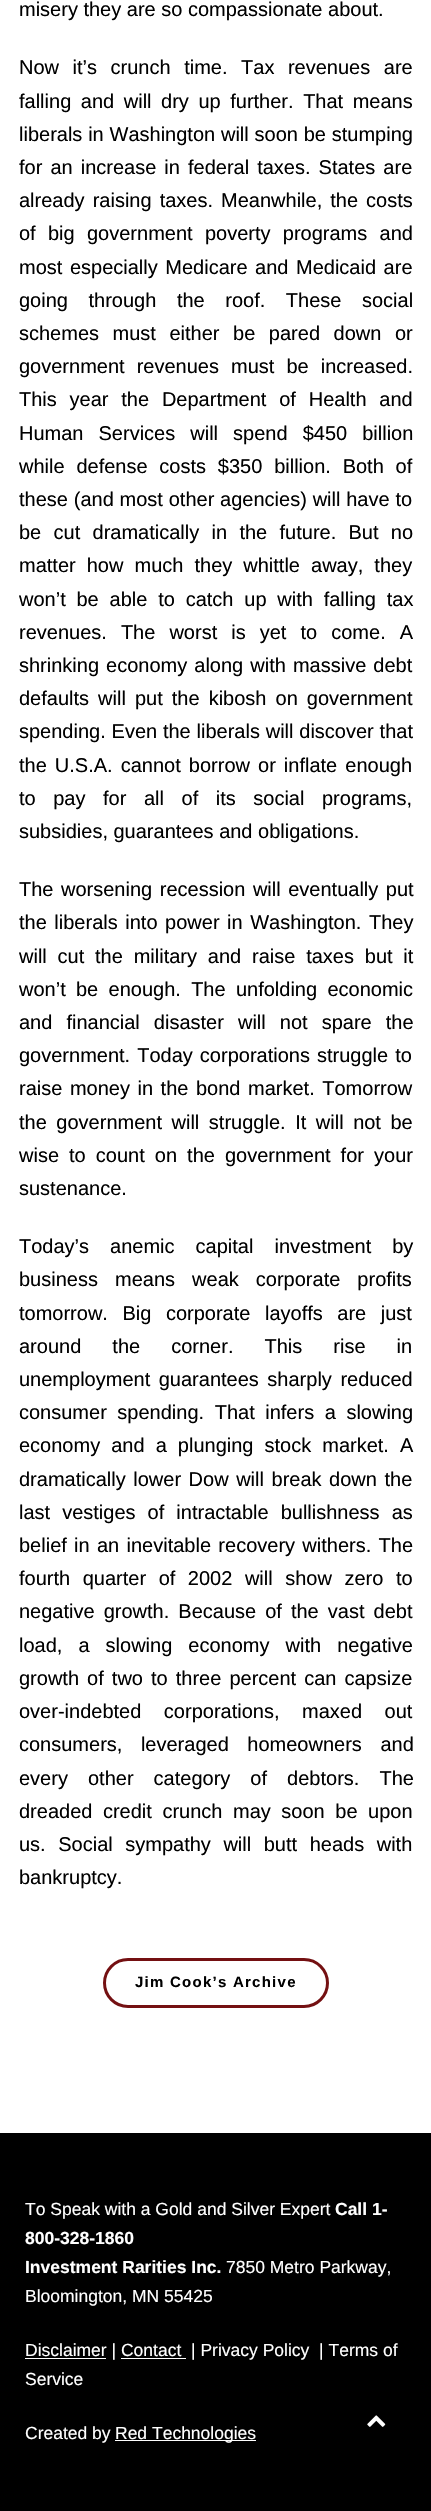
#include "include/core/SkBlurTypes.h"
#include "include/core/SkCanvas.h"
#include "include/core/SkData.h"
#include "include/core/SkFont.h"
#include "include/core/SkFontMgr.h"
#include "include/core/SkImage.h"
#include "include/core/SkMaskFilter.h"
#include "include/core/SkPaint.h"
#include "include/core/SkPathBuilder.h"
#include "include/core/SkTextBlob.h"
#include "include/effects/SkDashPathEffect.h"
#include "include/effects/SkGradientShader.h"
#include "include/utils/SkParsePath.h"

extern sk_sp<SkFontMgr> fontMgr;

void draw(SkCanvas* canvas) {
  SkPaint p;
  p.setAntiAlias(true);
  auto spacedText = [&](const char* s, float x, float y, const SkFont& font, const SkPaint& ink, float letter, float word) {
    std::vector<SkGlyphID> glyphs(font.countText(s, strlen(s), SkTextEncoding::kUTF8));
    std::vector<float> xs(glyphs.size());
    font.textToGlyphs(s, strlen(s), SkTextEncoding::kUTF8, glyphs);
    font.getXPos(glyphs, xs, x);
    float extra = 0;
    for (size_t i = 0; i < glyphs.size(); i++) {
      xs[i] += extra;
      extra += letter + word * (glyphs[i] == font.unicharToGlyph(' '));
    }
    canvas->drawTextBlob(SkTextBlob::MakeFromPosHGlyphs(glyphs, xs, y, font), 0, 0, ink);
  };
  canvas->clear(SK_ColorWHITE);
  p.setStyle(SkPaint::kStroke_Style);
  p.setStrokeWidth(3);
  p.setColor(SkColorSetRGB(116, 16, 18));
  canvas->drawRoundRect(SkRect::MakeLTRB(104.5f, 1959.5f, 327.5f, 2006.5f), 23.5f, 23.5f, p);
  p.setStyle(SkPaint::kFill_Style);
  p.setColor(SK_ColorBLACK);
  canvas->drawRect(SkRect::MakeLTRB(0, 2133, 431, 2511), p);
  p.setColor(SK_ColorWHITE);
  canvas->drawRect(SkRect::MakeLTRB(25, 2358, 106, 2359), p);
  canvas->drawRect(SkRect::MakeLTRB(121, 2358, 186, 2359), p);
  canvas->drawRect(SkRect::MakeLTRB(115, 2440, 256, 2441), p);
  canvas->drawImageRect(SkImages::DeferredFromEncodedData(SkData::MakeFromFileName("images/1.png")), SkRect::MakeLTRB(367, 2415, 386, 2427), SkSamplingOptions());
  SkFont font1(fontMgr->matchFamilyStyle("Liberation Sans", SkFontStyle::Normal()), 20);
  font1.setSubpixel(true);
  p.setColor(SK_ColorBLACK);
  canvas->drawString("misery they are so compassionate about.", 19, 16, font1, p);
  spacedText("Now it’s crunch time. Tax revenues are", 19, 74, font1, p, 0, 8);
  spacedText("falling and will dry up further. That means", 19, 108, font1, p, 0, 4);
  spacedText("liberals in Washington will soon be stumping", 19, 141, font1, p, 0, 0.25f);
  spacedText("for an increase in federal taxes. States are", 19, 174, font1, p, 0, 2.5f);
  spacedText("already raising taxes. Meanwhile, the costs", 19, 207, font1, p, 0, 2.5f);
  spacedText("of big government poverty programs and", 19, 240, font1, p, 0, 6.75f);
  spacedText("most especially Medicare and Medicaid are", 19, 274, font1, p, 0, 2);
  spacedText("going through the roof. These social", 19, 307, font1, p, 0, 15);
  spacedText("schemes must either be pared down or", 19, 340, font1, p, 0, 8);
  spacedText("government revenues must be increased.", 19, 373, font1, p, 0, 6.5f);
  spacedText("This year the Department of Health and", 19, 406, font1, p, 0, 7.25f);
  spacedText("Human Services will spend $450 billion", 19, 440, font1, p, 0, 9.5f);
  spacedText("while defense costs $350 billion. Both of", 19, 473, font1, p, 0, 6.25f);
  spacedText("these (and most other agencies) will have to", 19, 506, font1, p, 0, 0.25f);
  spacedText("be cut dramatically in the future. But no", 19, 539, font1, p, 0, 6.75f);
  spacedText("matter how much they whittle away, they", 19, 572, font1, p, 0, 5.5f);
  spacedText("won’t be able to catch up with falling tax", 19, 606, font1, p, 0, 5.25f);
  spacedText("revenues. The worst is yet to come. A", 19, 639, font1, p, 0, 8.5f);
  spacedText("shrinking economy along with massive debt", 19, 672, font1, p, 0, 1.5f);
  spacedText("defaults will put the kibosh on government", 19, 705, font1, p, 0, 3.5f);
  spacedText("spending. Even the liberals will discover that", 19, 738, font1, p, 0, 0.25f);
  spacedText("the U.S.A. cannot borrow or inflate enough", 19, 772, font1, p, 0, 2.5f);
  spacedText("to pay for all of its social programs,", 19, 805, font1, p, 0, 12);
  canvas->drawString("subsidies, guarantees and obligations.", 19, 838, font1, p);
  spacedText("The worsening recession will eventually put", 19, 896, font1, p, 0, 2);
  spacedText("the liberals into power in Washington. They", 19, 929, font1, p, 0, 2);
  spacedText("will cut the military and raise taxes but it", 19, 963, font1, p, 0, 5.25f);
  spacedText("won’t be enough. The unfolding economic", 19, 996, font1, p, 0, 4.75f);
  spacedText("and financial disaster will not spare the", 19, 1029, font1, p, 0, 8.5f);
  spacedText("government. Today corporations struggle to", 19, 1062, font1, p, 0, 1.5f);
  spacedText("raise money in the bond market. Tomorrow", 19, 1095, font1, p, 0, 2);
  spacedText("the government will struggle. It will not be", 19, 1129, font1, p, 0, 4);
  spacedText("wise to count on the government for your", 19, 1162, font1, p, 0, 4.5f);
  canvas->drawString("sustenance.", 19, 1195, font1, p);
  spacedText("Today’s anemic capital investment by", 19, 1253, font1, p, 0, 15.5f);
  spacedText("business means weak corporate profits", 19, 1286, font1, p, 0, 11.5f);
  spacedText("tomorrow. Big corporate layoffs are just", 19, 1320, font1, p, 0, 9);
  spacedText("around the corner. This rise in", 19, 1353, font1, p, 0, 25.5f);
  spacedText("unemployment guarantees sharply reduced", 19, 1386, font1, p, 0, 3);
  spacedText("consumer spending. That infers a slowing", 19, 1419, font1, p, 0, 5);
  spacedText("economy and a plunging stock market. A", 19, 1452, font1, p, 0, 5.5f);
  spacedText("dramatically lower Dow will break down the", 19, 1486, font1, p, 0, 2);
  spacedText("last vestiges of intractable bullishness as", 19, 1519, font1, p, 0, 6.5f);
  spacedText("belief in an inevitable recovery withers. The", 19, 1552, font1, p, 0, 1.75f);
  spacedText("fourth quarter of 2002 will show zero to", 19, 1585, font1, p, 0, 7);
  spacedText("negative growth. Because of the vast debt", 19, 1618, font1, p, 0, 3.5f);
  spacedText("load, a slowing economy with negative", 19, 1652, font1, p, 0, 10.5f);
  spacedText("growth of two to three percent can capsize", 19, 1685, font1, p, 0, 2.5f);
  spacedText("over-indebted corporations, maxed out", 19, 1718, font1, p, 0, 17);
  spacedText("consumers, leveraged homeowners and", 19, 1751, font1, p, 0, 13);
  spacedText("every other category of debtors. The", 19, 1785, font1, p, 0, 14.5f);
  spacedText("dreaded credit crunch may soon be upon", 19, 1818, font1, p, 0, 5);
  spacedText("us. Social sympathy will butt heads with", 19, 1851, font1, p, 0, 7);
  canvas->drawString("bankruptcy.", 19, 1884, font1, p);
  SkFont font2(fontMgr->matchFamilyStyle("Liberation Sans", SkFontStyle::Bold()), 15);
  font2.setSubpixel(true);
  spacedText("Jim Cook’s Archive", 135, 1987, font2, p, 1.25f, 0);
  SkFont font3(fontMgr->matchFamilyStyle("Liberation Sans", SkFontStyle::Normal()), 17.5f);
  font3.setSubpixel(true);
  p.setColor(SK_ColorWHITE);
  canvas->drawString("To Speak with a Gold and Silver Expert", 25, 2215, font3, p);
  SkFont font4(fontMgr->matchFamilyStyle("Liberation Sans", SkFontStyle::Bold()), 17.5f);
  font4.setSubpixel(true);
  canvas->drawString("Call 1-", 335, 2215, font4, p);
  canvas->drawString("800-328-1860", 25, 2244, font4, p);
  canvas->drawString("Investment Rarities Inc.", 25, 2273, font4, p);
  canvas->drawString("7850 Metro Parkway,", 226, 2273, font3, p);
  canvas->drawString("Bloomington, MN 55425", 25, 2302, font3, p);
  canvas->drawString("Disclaimer | Contact", 25, 2356, font3, p);
  canvas->drawString("| Privacy Policy  | Terms of", 191, 2356, font3, p);
  canvas->drawString("Service", 25, 2385, font3, p);
  canvas->drawString("Created by", 25, 2439, font3, p);
  canvas->drawString("Red Technologies", 115, 2439, font3, p);
}
